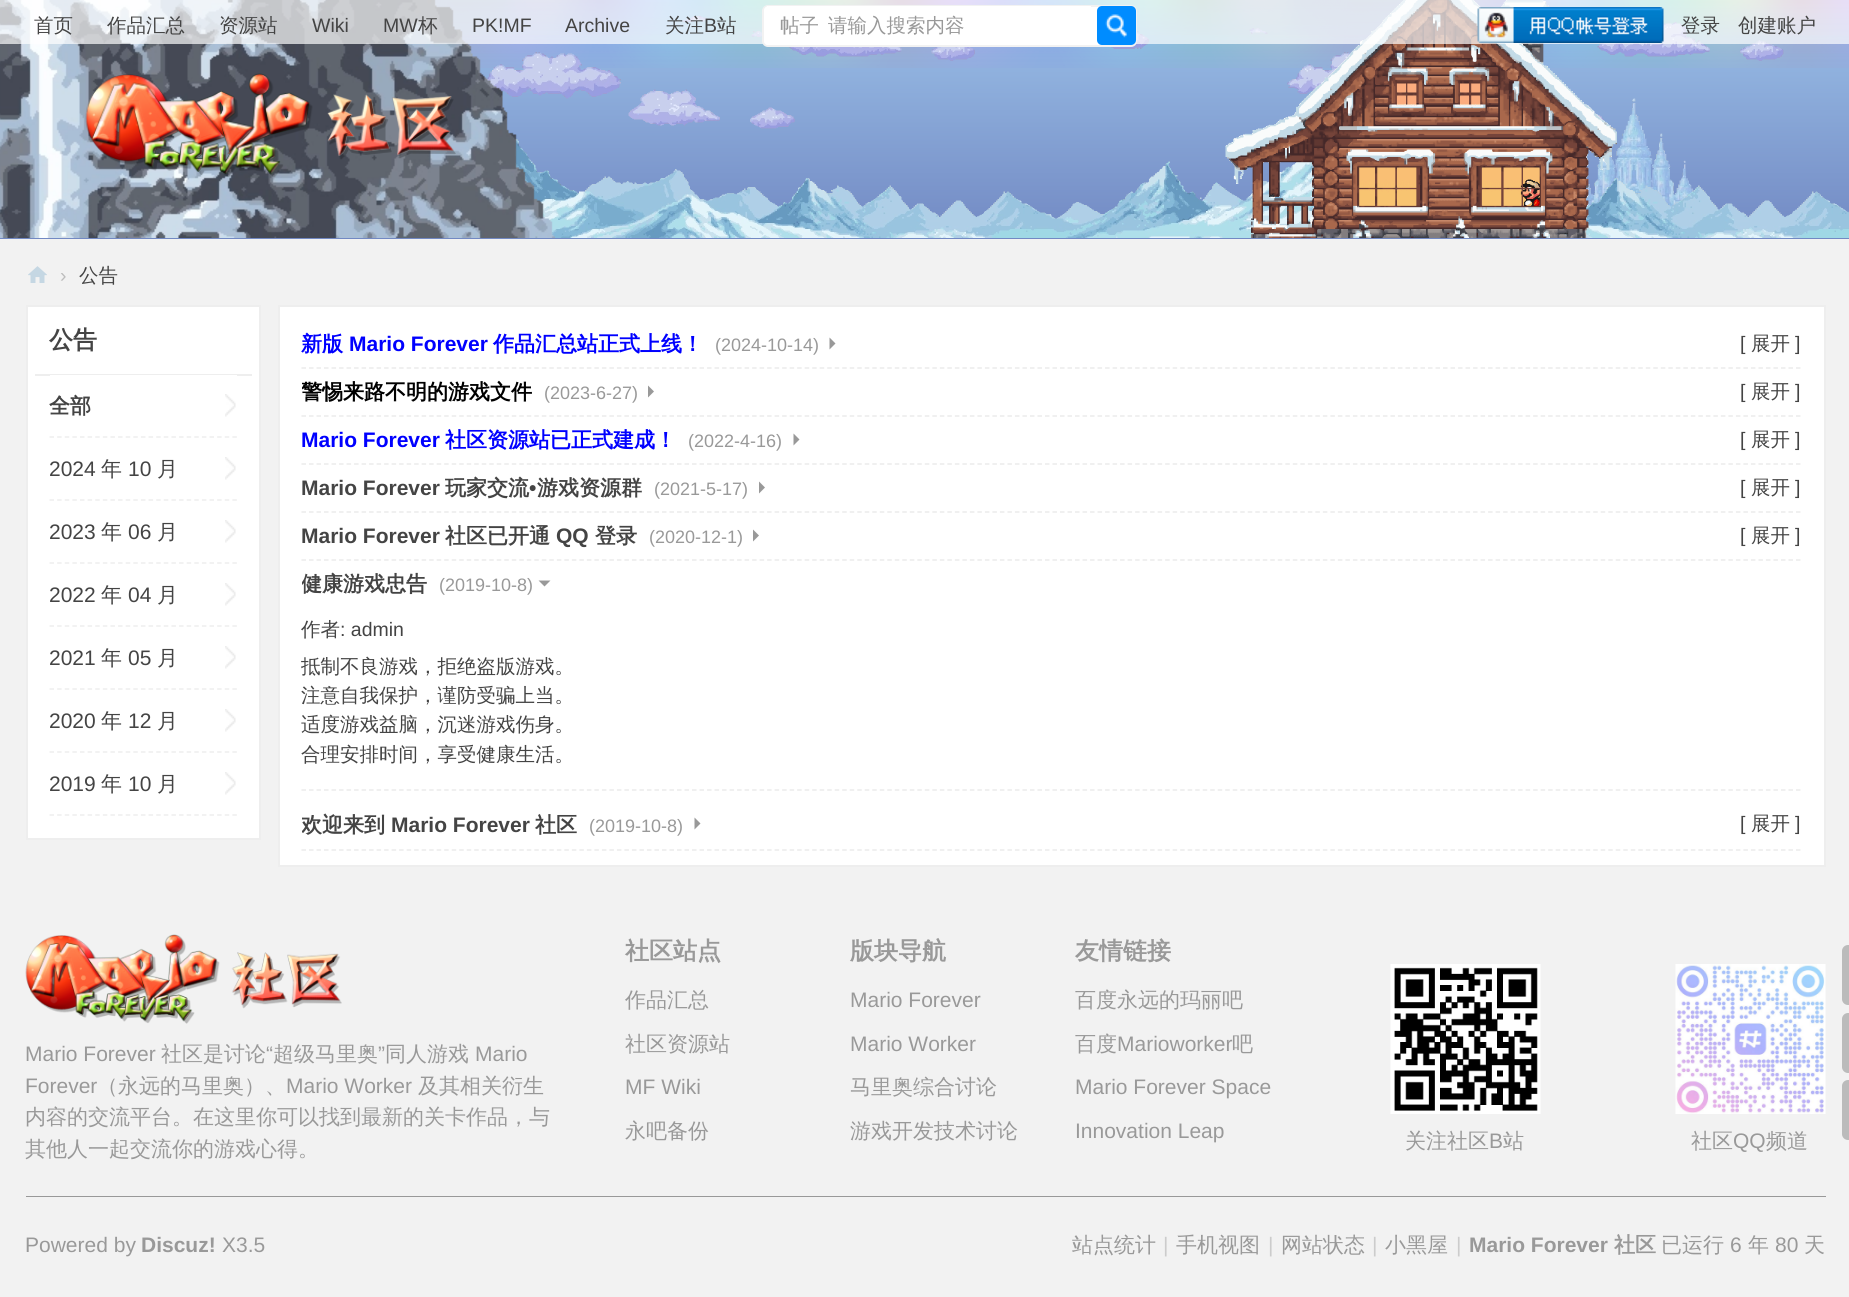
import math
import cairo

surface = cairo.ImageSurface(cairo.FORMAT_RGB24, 1849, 1297)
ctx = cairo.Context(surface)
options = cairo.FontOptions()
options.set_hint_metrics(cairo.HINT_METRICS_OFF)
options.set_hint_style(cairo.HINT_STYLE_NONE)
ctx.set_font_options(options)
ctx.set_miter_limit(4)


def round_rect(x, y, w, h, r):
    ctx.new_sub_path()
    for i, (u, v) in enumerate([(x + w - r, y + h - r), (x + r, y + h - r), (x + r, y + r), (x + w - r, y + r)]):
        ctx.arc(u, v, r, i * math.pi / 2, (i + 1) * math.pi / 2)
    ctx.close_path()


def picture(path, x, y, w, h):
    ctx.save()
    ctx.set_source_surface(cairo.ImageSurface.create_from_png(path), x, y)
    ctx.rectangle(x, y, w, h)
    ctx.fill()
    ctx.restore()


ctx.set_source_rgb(0.949, 0.949, 0.949)
ctx.paint()
gradient = cairo.LinearGradient(925, 239, 925, -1.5)
gradient.add_color_stop_rgba(0, 0.447, 0.537, 0.765, 1)
gradient.add_color_stop_rgba(1, 0.612, 0.761, 0.914, 1)
ctx.set_source(gradient)
ctx.rectangle(0, 0, 1849, 239)
ctx.fill()
picture("img4.png", 434, 0, 1415, 35)
picture("img5.png", 434, 0, 1415, 68)
picture("img6.png", 1586, 98, 114, 109)
picture("img7.png", 485, 16, 1364, 222)
picture("img1.png", 0, 0, 555, 238)
picture("img3.png", 1225, 0, 392, 238)
ctx.set_source_rgba(1, 1, 1, 0.69)
ctx.rectangle(0, 0, 1849, 44)
ctx.fill()
picture("img2.png", 85, 73, 371, 105)
ctx.select_font_face("WenQuanYi Zen Hei Medium")
ctx.set_font_size(19.5)
ctx.set_source_rgb(0.267, 0.267, 0.267)
ctx.move_to(34, 32)
ctx.show_text("首页")
ctx.move_to(107, 32)
ctx.show_text("作品汇总")
ctx.move_to(219, 32)
ctx.show_text("资源站")
ctx.select_font_face("Liberation Sans")
ctx.move_to(312, 32)
ctx.show_text("Wiki")
ctx.move_to(383, 32)
ctx.show_text("MW")
ctx.select_font_face("WenQuanYi Zen Hei Medium")
ctx.move_to(418, 32)
ctx.show_text("杯")
ctx.select_font_face("Liberation Sans")
ctx.move_to(472, 32)
ctx.show_text("PK!MF")
ctx.move_to(565, 32)
ctx.show_text("Archive")
ctx.select_font_face("WenQuanYi Zen Hei Medium")
ctx.move_to(665, 32)
ctx.show_text("关注")
ctx.select_font_face("Liberation Sans")
ctx.move_to(704, 32)
ctx.show_text("B")
ctx.select_font_face("WenQuanYi Zen Hei Medium")
ctx.move_to(717, 32)
ctx.show_text("站")
ctx.set_source_rgb(1, 1, 1)
round_rect(763, 6, 373, 40, 5)
ctx.fill_preserve()
ctx.set_source_rgb(0.949, 0.949, 0.949)
ctx.stroke()
ctx.set_source_rgb(1, 1, 1)
ctx.new_path()
ctx.move_to(769, 6)
ctx.line_to(819, 6)
ctx.line_to(819, 45)
ctx.line_to(769, 45)
ctx.curve_to(766, 45, 764, 43, 764, 40)
ctx.line_to(764, 11)
ctx.curve_to(764, 8, 766, 6, 769, 6)
ctx.close_path()
ctx.fill()
ctx.rectangle(767, 6, 1, 1)
ctx.fill()
ctx.set_source_rgb(0.6, 0.6, 0.6)
ctx.move_to(780, 32)
ctx.show_text("帖子")
ctx.set_source_rgb(1, 1, 1)
ctx.rectangle(819, 6, 272, 1)
ctx.fill()
ctx.set_source_rgb(0.6, 0.6, 0.6)
ctx.move_to(828, 32)
ctx.show_text("请输入搜索内容")
ctx.set_source_rgb(0, 0.549, 1)
round_rect(1097, 6, 39, 39, 5)
ctx.fill()
picture("img8.png", 1105, 14, 23, 24)
picture("img9.png", 1477, 7, 187, 36)
ctx.set_source_rgb(0.267, 0.267, 0.267)
ctx.move_to(1681, 32)
ctx.show_text("登录")
ctx.move_to(1738, 32)
ctx.show_text("创建账户")
picture("img10.png", 28, 266, 19, 17)
ctx.select_font_face("Liberation Sans")
ctx.set_source_rgb(0.741, 0.741, 0.741)
ctx.move_to(60, 282)
ctx.show_text("›")
ctx.select_font_face("WenQuanYi Zen Hei Medium")
ctx.set_source_rgb(0.267, 0.267, 0.267)
ctx.move_to(79, 282)
ctx.show_text("公告")
ctx.set_source_rgb(1, 1, 1)
ctx.rectangle(27, 306, 233, 533)
ctx.fill_preserve()
ctx.set_source_rgb(0.933, 0.933, 0.933)
ctx.stroke()
ctx.rectangle(35, 374, 217, 2)
ctx.fill()
ctx.select_font_face("WenQuanYi Zen Hei", cairo.FONT_SLANT_NORMAL, cairo.FONT_WEIGHT_BOLD)
ctx.set_font_size(24)
ctx.set_source_rgb(0.267, 0.267, 0.267)
ctx.move_to(49, 348)
ctx.show_text("公告")
ctx.set_source_rgb(1, 1, 1)
ctx.rectangle(50, 375, 187, 1)
ctx.fill()
ctx.new_path()
ctx.move_to(49.5, 437)
ctx.line_to(237, 437)
ctx.set_source_rgb(0.933, 0.933, 0.933)
ctx.set_line_width(1.5)
ctx.set_dash([4.5, 3.12])
ctx.stroke()
picture("img11.png", 225, 394, 11, 23)
ctx.set_font_size(21)
ctx.set_source_rgb(0.267, 0.267, 0.267)
ctx.move_to(49, 413)
ctx.show_text("全部")
ctx.new_path()
ctx.move_to(49.5, 500)
ctx.line_to(237, 500)
ctx.set_source_rgb(0.933, 0.933, 0.933)
ctx.stroke()
picture("img11.png", 225, 457, 11, 23)
ctx.select_font_face("Liberation Sans")
ctx.set_source_rgb(0.267, 0.267, 0.267)
ctx.move_to(49, 476)
ctx.show_text("2024")
ctx.select_font_face("WenQuanYi Zen Hei Medium")
ctx.move_to(101, 476)
ctx.show_text("年")
ctx.select_font_face("Liberation Sans")
ctx.move_to(128, 476)
ctx.show_text("10")
ctx.select_font_face("WenQuanYi Zen Hei Medium")
ctx.move_to(157, 476)
ctx.show_text("月")
ctx.new_path()
ctx.move_to(49.5, 563)
ctx.line_to(237, 563)
ctx.set_source_rgb(0.933, 0.933, 0.933)
ctx.stroke()
picture("img11.png", 225, 520, 11, 23)
ctx.select_font_face("Liberation Sans")
ctx.set_source_rgb(0.267, 0.267, 0.267)
ctx.move_to(49, 539)
ctx.show_text("2023")
ctx.select_font_face("WenQuanYi Zen Hei Medium")
ctx.move_to(101, 539)
ctx.show_text("年")
ctx.select_font_face("Liberation Sans")
ctx.move_to(128, 539)
ctx.show_text("06")
ctx.select_font_face("WenQuanYi Zen Hei Medium")
ctx.move_to(157, 539)
ctx.show_text("月")
ctx.new_path()
ctx.move_to(49.5, 626)
ctx.line_to(237, 626)
ctx.set_source_rgb(0.933, 0.933, 0.933)
ctx.stroke()
picture("img11.png", 225, 583, 11, 23)
ctx.select_font_face("Liberation Sans")
ctx.set_source_rgb(0.267, 0.267, 0.267)
ctx.move_to(49, 602)
ctx.show_text("2022")
ctx.select_font_face("WenQuanYi Zen Hei Medium")
ctx.move_to(101, 602)
ctx.show_text("年")
ctx.select_font_face("Liberation Sans")
ctx.move_to(128, 602)
ctx.show_text("04")
ctx.select_font_face("WenQuanYi Zen Hei Medium")
ctx.move_to(157, 602)
ctx.show_text("月")
ctx.new_path()
ctx.move_to(49.5, 689)
ctx.line_to(237, 689)
ctx.set_source_rgb(0.933, 0.933, 0.933)
ctx.stroke()
picture("img11.png", 225, 646, 11, 23)
ctx.select_font_face("Liberation Sans")
ctx.set_source_rgb(0.267, 0.267, 0.267)
ctx.move_to(49, 665)
ctx.show_text("2021")
ctx.select_font_face("WenQuanYi Zen Hei Medium")
ctx.move_to(101, 665)
ctx.show_text("年")
ctx.select_font_face("Liberation Sans")
ctx.move_to(128, 665)
ctx.show_text("05")
ctx.select_font_face("WenQuanYi Zen Hei Medium")
ctx.move_to(157, 665)
ctx.show_text("月")
ctx.new_path()
ctx.move_to(49.5, 752)
ctx.line_to(237, 752)
ctx.set_source_rgb(0.933, 0.933, 0.933)
ctx.stroke()
picture("img11.png", 225, 709, 11, 23)
ctx.select_font_face("Liberation Sans")
ctx.set_source_rgb(0.267, 0.267, 0.267)
ctx.move_to(49, 728)
ctx.show_text("2020")
ctx.select_font_face("WenQuanYi Zen Hei Medium")
ctx.move_to(101, 728)
ctx.show_text("年")
ctx.select_font_face("Liberation Sans")
ctx.move_to(128, 728)
ctx.show_text("12")
ctx.select_font_face("WenQuanYi Zen Hei Medium")
ctx.move_to(157, 728)
ctx.show_text("月")
ctx.new_path()
ctx.move_to(49.5, 815)
ctx.line_to(237, 815)
ctx.set_source_rgb(0.933, 0.933, 0.933)
ctx.stroke()
picture("img11.png", 225, 772, 11, 23)
ctx.select_font_face("Liberation Sans")
ctx.set_source_rgb(0.267, 0.267, 0.267)
ctx.move_to(49, 791)
ctx.show_text("2019")
ctx.select_font_face("WenQuanYi Zen Hei Medium")
ctx.move_to(101, 791)
ctx.show_text("年")
ctx.select_font_face("Liberation Sans")
ctx.move_to(128, 791)
ctx.show_text("10")
ctx.select_font_face("WenQuanYi Zen Hei Medium")
ctx.move_to(157, 791)
ctx.show_text("月")
ctx.set_source_rgb(1, 1, 1)
ctx.rectangle(279, 306, 1546, 560)
ctx.fill_preserve()
ctx.set_source_rgb(0.933, 0.933, 0.933)
ctx.set_line_width(2)
ctx.set_dash([])
ctx.stroke()
ctx.new_path()
ctx.move_to(301.5, 368)
ctx.line_to(1801.5, 368)
ctx.set_source_rgb(0.918, 0.918, 0.918)
ctx.set_line_width(1.5)
ctx.set_dash([4.5, 3.01])
ctx.stroke()
ctx.select_font_face("WenQuanYi Zen Hei", cairo.FONT_SLANT_NORMAL, cairo.FONT_WEIGHT_BOLD)
ctx.set_source_rgb(0, 0, 1)
ctx.move_to(301, 351)
ctx.show_text("新版")
ctx.select_font_face("Liberation Sans", cairo.FONT_SLANT_NORMAL, cairo.FONT_WEIGHT_BOLD)
ctx.move_to(349, 351)
ctx.show_text("Mario Forever")
ctx.select_font_face("WenQuanYi Zen Hei", cairo.FONT_SLANT_NORMAL, cairo.FONT_WEIGHT_BOLD)
ctx.move_to(493, 351)
ctx.show_text("作品汇总站正式上线！")
ctx.select_font_face("Liberation Sans")
ctx.set_font_size(18)
ctx.set_source_rgb(0.6, 0.6, 0.6)
ctx.move_to(715, 351)
ctx.show_text("(2024-10-14)")
ctx.new_path()
ctx.move_to(829.5, 349.5)
ctx.line_to(829.5, 337.5)
ctx.line_to(835.5, 343.5)
ctx.close_path()
ctx.fill()
ctx.set_font_size(19.5)
ctx.set_source_rgb(0.267, 0.267, 0.267)
ctx.move_to(1740, 350)
ctx.show_text("[")
ctx.select_font_face("WenQuanYi Zen Hei Medium")
ctx.move_to(1751, 350)
ctx.show_text("展开")
ctx.select_font_face("Liberation Sans")
ctx.move_to(1795, 350)
ctx.show_text("]")
ctx.new_path()
ctx.move_to(301.5, 416)
ctx.line_to(1801.5, 416)
ctx.set_source_rgb(0.918, 0.918, 0.918)
ctx.stroke()
ctx.save()
ctx.rectangle(302, 377, 1500, 39)
ctx.clip()
ctx.select_font_face("WenQuanYi Zen Hei", cairo.FONT_SLANT_NORMAL, cairo.FONT_WEIGHT_BOLD)
ctx.set_font_size(21)
ctx.set_source_rgb(0, 0, 0)
ctx.move_to(301, 399)
ctx.show_text("警惕来路不明的游戏文件")
ctx.restore()
ctx.set_font_size(18)
ctx.set_source_rgb(0.6, 0.6, 0.6)
ctx.move_to(544, 399)
ctx.show_text("(2023-6-27)")
ctx.new_path()
ctx.move_to(648, 397.5)
ctx.line_to(648, 385.5)
ctx.line_to(654, 391.5)
ctx.close_path()
ctx.fill()
ctx.set_font_size(19.5)
ctx.set_source_rgb(0.267, 0.267, 0.267)
ctx.move_to(1740, 398)
ctx.show_text("[")
ctx.select_font_face("WenQuanYi Zen Hei Medium")
ctx.move_to(1751, 398)
ctx.show_text("展开")
ctx.select_font_face("Liberation Sans")
ctx.move_to(1795, 398)
ctx.show_text("]")
ctx.new_path()
ctx.move_to(301.5, 464)
ctx.line_to(1801.5, 464)
ctx.set_source_rgb(0.918, 0.918, 0.918)
ctx.stroke()
ctx.select_font_face("Liberation Sans", cairo.FONT_SLANT_NORMAL, cairo.FONT_WEIGHT_BOLD)
ctx.set_font_size(21)
ctx.set_source_rgb(0, 0, 1)
ctx.move_to(301, 447)
ctx.show_text("Mario Forever")
ctx.select_font_face("WenQuanYi Zen Hei", cairo.FONT_SLANT_NORMAL, cairo.FONT_WEIGHT_BOLD)
ctx.move_to(445, 447)
ctx.show_text("社区资源站已正式建成！")
ctx.select_font_face("Liberation Sans")
ctx.set_font_size(18)
ctx.set_source_rgb(0.6, 0.6, 0.6)
ctx.move_to(688, 447)
ctx.show_text("(2022-4-16)")
ctx.new_path()
ctx.move_to(793.5, 445.5)
ctx.line_to(793.5, 433.5)
ctx.line_to(799.5, 439.5)
ctx.close_path()
ctx.fill()
ctx.set_font_size(19.5)
ctx.set_source_rgb(0.267, 0.267, 0.267)
ctx.move_to(1740, 446)
ctx.show_text("[")
ctx.select_font_face("WenQuanYi Zen Hei Medium")
ctx.move_to(1751, 446)
ctx.show_text("展开")
ctx.select_font_face("Liberation Sans")
ctx.move_to(1795, 446)
ctx.show_text("]")
ctx.new_path()
ctx.move_to(301.5, 512)
ctx.line_to(1801.5, 512)
ctx.set_source_rgb(0.918, 0.918, 0.918)
ctx.stroke()
ctx.select_font_face("Liberation Sans", cairo.FONT_SLANT_NORMAL, cairo.FONT_WEIGHT_BOLD)
ctx.set_font_size(21)
ctx.set_source_rgb(0.267, 0.267, 0.267)
ctx.move_to(301, 495)
ctx.show_text("Mario Forever")
ctx.select_font_face("WenQuanYi Zen Hei", cairo.FONT_SLANT_NORMAL, cairo.FONT_WEIGHT_BOLD)
ctx.move_to(445, 495)
ctx.show_text("玩家交流")
ctx.select_font_face("Liberation Sans", cairo.FONT_SLANT_NORMAL, cairo.FONT_WEIGHT_BOLD)
ctx.move_to(529, 495)
ctx.show_text("•")
ctx.select_font_face("WenQuanYi Zen Hei", cairo.FONT_SLANT_NORMAL, cairo.FONT_WEIGHT_BOLD)
ctx.move_to(537, 495)
ctx.show_text("游戏资源群")
ctx.select_font_face("Liberation Sans")
ctx.set_font_size(18)
ctx.set_source_rgb(0.6, 0.6, 0.6)
ctx.move_to(654, 495)
ctx.show_text("(2021-5-17)")
ctx.new_path()
ctx.move_to(759, 493.5)
ctx.line_to(759, 481.5)
ctx.line_to(765, 487.5)
ctx.close_path()
ctx.fill()
ctx.set_font_size(19.5)
ctx.set_source_rgb(0.267, 0.267, 0.267)
ctx.move_to(1740, 494)
ctx.show_text("[")
ctx.select_font_face("WenQuanYi Zen Hei Medium")
ctx.move_to(1751, 494)
ctx.show_text("展开")
ctx.select_font_face("Liberation Sans")
ctx.move_to(1795, 494)
ctx.show_text("]")
ctx.new_path()
ctx.move_to(301.5, 560)
ctx.line_to(1801.5, 560)
ctx.set_source_rgb(0.918, 0.918, 0.918)
ctx.stroke()
ctx.select_font_face("Liberation Sans", cairo.FONT_SLANT_NORMAL, cairo.FONT_WEIGHT_BOLD)
ctx.set_font_size(21)
ctx.set_source_rgb(0.267, 0.267, 0.267)
ctx.move_to(301, 543)
ctx.show_text("Mario Forever")
ctx.select_font_face("WenQuanYi Zen Hei", cairo.FONT_SLANT_NORMAL, cairo.FONT_WEIGHT_BOLD)
ctx.move_to(445, 543)
ctx.show_text("社区已开通")
ctx.select_font_face("Liberation Sans", cairo.FONT_SLANT_NORMAL, cairo.FONT_WEIGHT_BOLD)
ctx.move_to(556, 543)
ctx.show_text("QQ")
ctx.select_font_face("WenQuanYi Zen Hei", cairo.FONT_SLANT_NORMAL, cairo.FONT_WEIGHT_BOLD)
ctx.move_to(595, 543)
ctx.show_text("登录")
ctx.select_font_face("Liberation Sans")
ctx.set_font_size(18)
ctx.set_source_rgb(0.6, 0.6, 0.6)
ctx.move_to(649, 543)
ctx.show_text("(2020-12-1)")
ctx.new_path()
ctx.move_to(753, 541.5)
ctx.line_to(753, 529.5)
ctx.line_to(759, 535.5)
ctx.close_path()
ctx.fill()
ctx.set_font_size(19.5)
ctx.set_source_rgb(0.267, 0.267, 0.267)
ctx.move_to(1740, 542)
ctx.show_text("[")
ctx.select_font_face("WenQuanYi Zen Hei Medium")
ctx.move_to(1751, 542)
ctx.show_text("展开")
ctx.select_font_face("Liberation Sans")
ctx.move_to(1795, 542)
ctx.show_text("]")
ctx.save()
ctx.rectangle(302, 569, 1500, 39)
ctx.clip()
ctx.select_font_face("WenQuanYi Zen Hei", cairo.FONT_SLANT_NORMAL, cairo.FONT_WEIGHT_BOLD)
ctx.set_font_size(21)
ctx.move_to(301, 591)
ctx.show_text("健康游戏忠告")
ctx.restore()
ctx.set_font_size(18)
ctx.set_source_rgb(0.6, 0.6, 0.6)
ctx.move_to(439, 591)
ctx.show_text("(2019-10-8)")
ctx.new_path()
ctx.move_to(538.5, 580.5)
ctx.line_to(550.5, 580.5)
ctx.line_to(544.5, 586.5)
ctx.close_path()
ctx.fill()
ctx.new_path()
ctx.move_to(301.5, 790)
ctx.line_to(1801.5, 790)
ctx.set_source_rgb(0.918, 0.918, 0.918)
ctx.stroke()
ctx.select_font_face("WenQuanYi Zen Hei Medium")
ctx.set_font_size(19.5)
ctx.set_source_rgb(0.267, 0.267, 0.267)
ctx.move_to(301, 636)
ctx.show_text("作者")
ctx.select_font_face("Liberation Sans")
ctx.move_to(340, 636)
ctx.show_text(": admin")
ctx.select_font_face("WenQuanYi Zen Hei Medium")
ctx.move_to(301, 673)
ctx.show_text("抵制不良游戏，拒绝盗版游戏。")
ctx.move_to(301, 702)
ctx.show_text("注意自我保护，谨防受骗上当。")
ctx.move_to(301, 731)
ctx.show_text("适度游戏益脑，沉迷游戏伤身。")
ctx.move_to(301, 761)
ctx.show_text("合理安排时间，享受健康生活。")
ctx.new_path()
ctx.move_to(301.5, 850)
ctx.line_to(1801.5, 850)
ctx.set_source_rgb(0.918, 0.918, 0.918)
ctx.stroke()
ctx.save()
ctx.rectangle(302, 810, 1500, 39)
ctx.clip()
ctx.select_font_face("WenQuanYi Zen Hei", cairo.FONT_SLANT_NORMAL, cairo.FONT_WEIGHT_BOLD)
ctx.set_font_size(21)
ctx.set_source_rgb(0.267, 0.267, 0.267)
ctx.move_to(301, 832)
ctx.show_text("欢迎来到")
ctx.restore()
ctx.select_font_face("Liberation Sans", cairo.FONT_SLANT_NORMAL, cairo.FONT_WEIGHT_BOLD)
ctx.set_font_size(21)
ctx.set_source_rgb(0.267, 0.267, 0.267)
ctx.move_to(391, 832)
ctx.show_text("Mario Forever")
ctx.select_font_face("WenQuanYi Zen Hei", cairo.FONT_SLANT_NORMAL, cairo.FONT_WEIGHT_BOLD)
ctx.move_to(535, 832)
ctx.show_text("社区")
ctx.select_font_face("Liberation Sans")
ctx.set_font_size(18)
ctx.set_source_rgb(0.6, 0.6, 0.6)
ctx.move_to(589, 832)
ctx.show_text("(2019-10-8)")
ctx.new_path()
ctx.move_to(694.5, 829.5)
ctx.line_to(694.5, 817.5)
ctx.line_to(700.5, 823.5)
ctx.close_path()
ctx.fill()
ctx.set_font_size(19.5)
ctx.set_source_rgb(0.267, 0.267, 0.267)
ctx.move_to(1740, 830)
ctx.show_text("[")
ctx.select_font_face("WenQuanYi Zen Hei Medium")
ctx.move_to(1751, 830)
ctx.show_text("展开")
ctx.select_font_face("Liberation Sans")
ctx.move_to(1795, 830)
ctx.show_text("]")
ctx.set_source_rgb(0.6, 0.6, 0.6)
ctx.rectangle(26, 1196, 1800, 1)
ctx.fill()
picture("img12.png", 25, 934, 317, 90)
ctx.set_font_size(21)
ctx.move_to(25, 1061)
ctx.show_text("Mario Forever")
ctx.select_font_face("WenQuanYi Zen Hei Medium")
ctx.move_to(161, 1061)
ctx.show_text("社区是讨论")
ctx.select_font_face("Liberation Sans")
ctx.move_to(266, 1061)
ctx.show_text("“")
ctx.select_font_face("WenQuanYi Zen Hei Medium")
ctx.move_to(273, 1061)
ctx.show_text("超级马里奥")
ctx.select_font_face("Liberation Sans")
ctx.move_to(378, 1061)
ctx.show_text("”")
ctx.select_font_face("WenQuanYi Zen Hei Medium")
ctx.move_to(385, 1061)
ctx.show_text("同人游戏")
ctx.select_font_face("Liberation Sans")
ctx.move_to(475, 1061)
ctx.show_text("Mario")
ctx.move_to(25, 1093)
ctx.show_text("Forever")
ctx.select_font_face("WenQuanYi Zen Hei Medium")
ctx.move_to(97, 1093)
ctx.show_text("（永远的马里奥）、")
ctx.select_font_face("Liberation Sans")
ctx.move_to(286, 1093)
ctx.show_text("Mario Worker")
ctx.select_font_face("WenQuanYi Zen Hei Medium")
ctx.move_to(418, 1093)
ctx.show_text("及其相关衍生")
ctx.move_to(25, 1124)
ctx.show_text("内容的交流平台。在这里你可以找到最新的关卡作品，与")
ctx.move_to(25, 1156)
ctx.show_text("其他人一起交流你的游戏心得。")
ctx.select_font_face("WenQuanYi Zen Hei", cairo.FONT_SLANT_NORMAL, cairo.FONT_WEIGHT_BOLD)
ctx.set_font_size(24)
ctx.move_to(625, 959)
ctx.show_text("社区站点")
ctx.select_font_face("WenQuanYi Zen Hei Medium")
ctx.set_font_size(21)
ctx.move_to(625, 1007)
ctx.show_text("作品汇总")
ctx.move_to(625, 1051)
ctx.show_text("社区资源站")
ctx.select_font_face("Liberation Sans")
ctx.move_to(625, 1094)
ctx.show_text("MF Wiki")
ctx.select_font_face("WenQuanYi Zen Hei Medium")
ctx.move_to(625, 1138)
ctx.show_text("永吧备份")
ctx.select_font_face("WenQuanYi Zen Hei", cairo.FONT_SLANT_NORMAL, cairo.FONT_WEIGHT_BOLD)
ctx.set_font_size(24)
ctx.move_to(850, 959)
ctx.show_text("版块导航")
ctx.select_font_face("Liberation Sans")
ctx.set_font_size(21)
ctx.move_to(850, 1007)
ctx.show_text("Mario Forever")
ctx.move_to(850, 1051)
ctx.show_text("Mario Worker")
ctx.select_font_face("WenQuanYi Zen Hei Medium")
ctx.move_to(850, 1094)
ctx.show_text("马里奥综合讨论")
ctx.move_to(850, 1138)
ctx.show_text("游戏开发技术讨论")
ctx.select_font_face("WenQuanYi Zen Hei", cairo.FONT_SLANT_NORMAL, cairo.FONT_WEIGHT_BOLD)
ctx.set_font_size(24)
ctx.move_to(1075, 959)
ctx.show_text("友情链接")
ctx.select_font_face("WenQuanYi Zen Hei Medium")
ctx.set_font_size(21)
ctx.move_to(1075, 1007)
ctx.show_text("百度永远的玛丽吧")
ctx.move_to(1075, 1051)
ctx.show_text("百度")
ctx.select_font_face("Liberation Sans")
ctx.move_to(1117, 1051)
ctx.show_text("Marioworker")
ctx.select_font_face("WenQuanYi Zen Hei Medium")
ctx.move_to(1232, 1051)
ctx.show_text("吧")
ctx.select_font_face("Liberation Sans")
ctx.move_to(1075, 1094)
ctx.show_text("Mario Forever Space")
ctx.move_to(1075, 1138)
ctx.show_text("Innovation Leap")
picture("img13.png", 1390, 964, 151, 150)
ctx.select_font_face("WenQuanYi Zen Hei Medium")
ctx.move_to(1405, 1148)
ctx.show_text("关注社区")
ctx.select_font_face("Liberation Sans")
ctx.move_to(1489, 1148)
ctx.show_text("B")
ctx.select_font_face("WenQuanYi Zen Hei Medium")
ctx.move_to(1503, 1148)
ctx.show_text("站")
picture("img14.png", 1675, 964, 151, 150)
ctx.move_to(1691, 1148)
ctx.show_text("社区")
ctx.select_font_face("Liberation Sans")
ctx.move_to(1733, 1148)
ctx.show_text("QQ")
ctx.select_font_face("WenQuanYi Zen Hei Medium")
ctx.move_to(1766, 1148)
ctx.show_text("频道")
ctx.select_font_face("Liberation Sans")
ctx.move_to(25, 1252)
ctx.show_text("Powered by")
ctx.select_font_face("Liberation Sans", cairo.FONT_SLANT_NORMAL, cairo.FONT_WEIGHT_BOLD)
ctx.move_to(141, 1252)
ctx.show_text("Discuz!")
ctx.select_font_face("Liberation Sans")
ctx.move_to(222, 1252)
ctx.show_text("X3.5")
ctx.select_font_face("WenQuanYi Zen Hei Medium")
ctx.move_to(1072, 1252)
ctx.show_text("站点统计")
ctx.select_font_face("Liberation Sans")
ctx.set_source_rgb(0.8, 0.8, 0.8)
ctx.move_to(1163, 1252)
ctx.show_text("|")
ctx.select_font_face("WenQuanYi Zen Hei Medium")
ctx.set_source_rgb(0.6, 0.6, 0.6)
ctx.move_to(1176, 1252)
ctx.show_text("手机视图")
ctx.select_font_face("Liberation Sans")
ctx.set_source_rgb(0.8, 0.8, 0.8)
ctx.move_to(1268, 1252)
ctx.show_text("|")
ctx.select_font_face("WenQuanYi Zen Hei Medium")
ctx.set_source_rgb(0.6, 0.6, 0.6)
ctx.move_to(1281, 1252)
ctx.show_text("网站状态")
ctx.select_font_face("Liberation Sans")
ctx.set_source_rgb(0.8, 0.8, 0.8)
ctx.move_to(1372, 1252)
ctx.show_text("|")
ctx.select_font_face("WenQuanYi Zen Hei Medium")
ctx.set_source_rgb(0.6, 0.6, 0.6)
ctx.move_to(1385, 1252)
ctx.show_text("小黑屋")
ctx.select_font_face("Liberation Sans")
ctx.set_source_rgb(0.8, 0.8, 0.8)
ctx.move_to(1456, 1252)
ctx.show_text("|")
ctx.select_font_face("Liberation Sans", cairo.FONT_SLANT_NORMAL, cairo.FONT_WEIGHT_BOLD)
ctx.set_source_rgb(0.6, 0.6, 0.6)
ctx.move_to(1469, 1252)
ctx.show_text("Mario Forever")
ctx.select_font_face("WenQuanYi Zen Hei", cairo.FONT_SLANT_NORMAL, cairo.FONT_WEIGHT_BOLD)
ctx.move_to(1614, 1252)
ctx.show_text("社区")
ctx.select_font_face("WenQuanYi Zen Hei Medium")
ctx.move_to(1661, 1252)
ctx.show_text("已运行")
ctx.select_font_face("Liberation Sans")
ctx.move_to(1730, 1252)
ctx.show_text("6")
ctx.select_font_face("WenQuanYi Zen Hei Medium")
ctx.move_to(1748, 1252)
ctx.show_text("年")
ctx.select_font_face("Liberation Sans")
ctx.move_to(1775, 1252)
ctx.show_text("80")
ctx.select_font_face("WenQuanYi Zen Hei Medium")
ctx.move_to(1804, 1252)
ctx.show_text("天")
ctx.set_source_rgb(0.733, 0.733, 0.733)
round_rect(1842, 945, 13, 60, 6)
ctx.fill()
round_rect(1842, 1013, 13, 60, 6)
ctx.fill()
round_rect(1842, 1080, 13, 60, 6)
ctx.fill()
surface.write_to_png("page.png")
